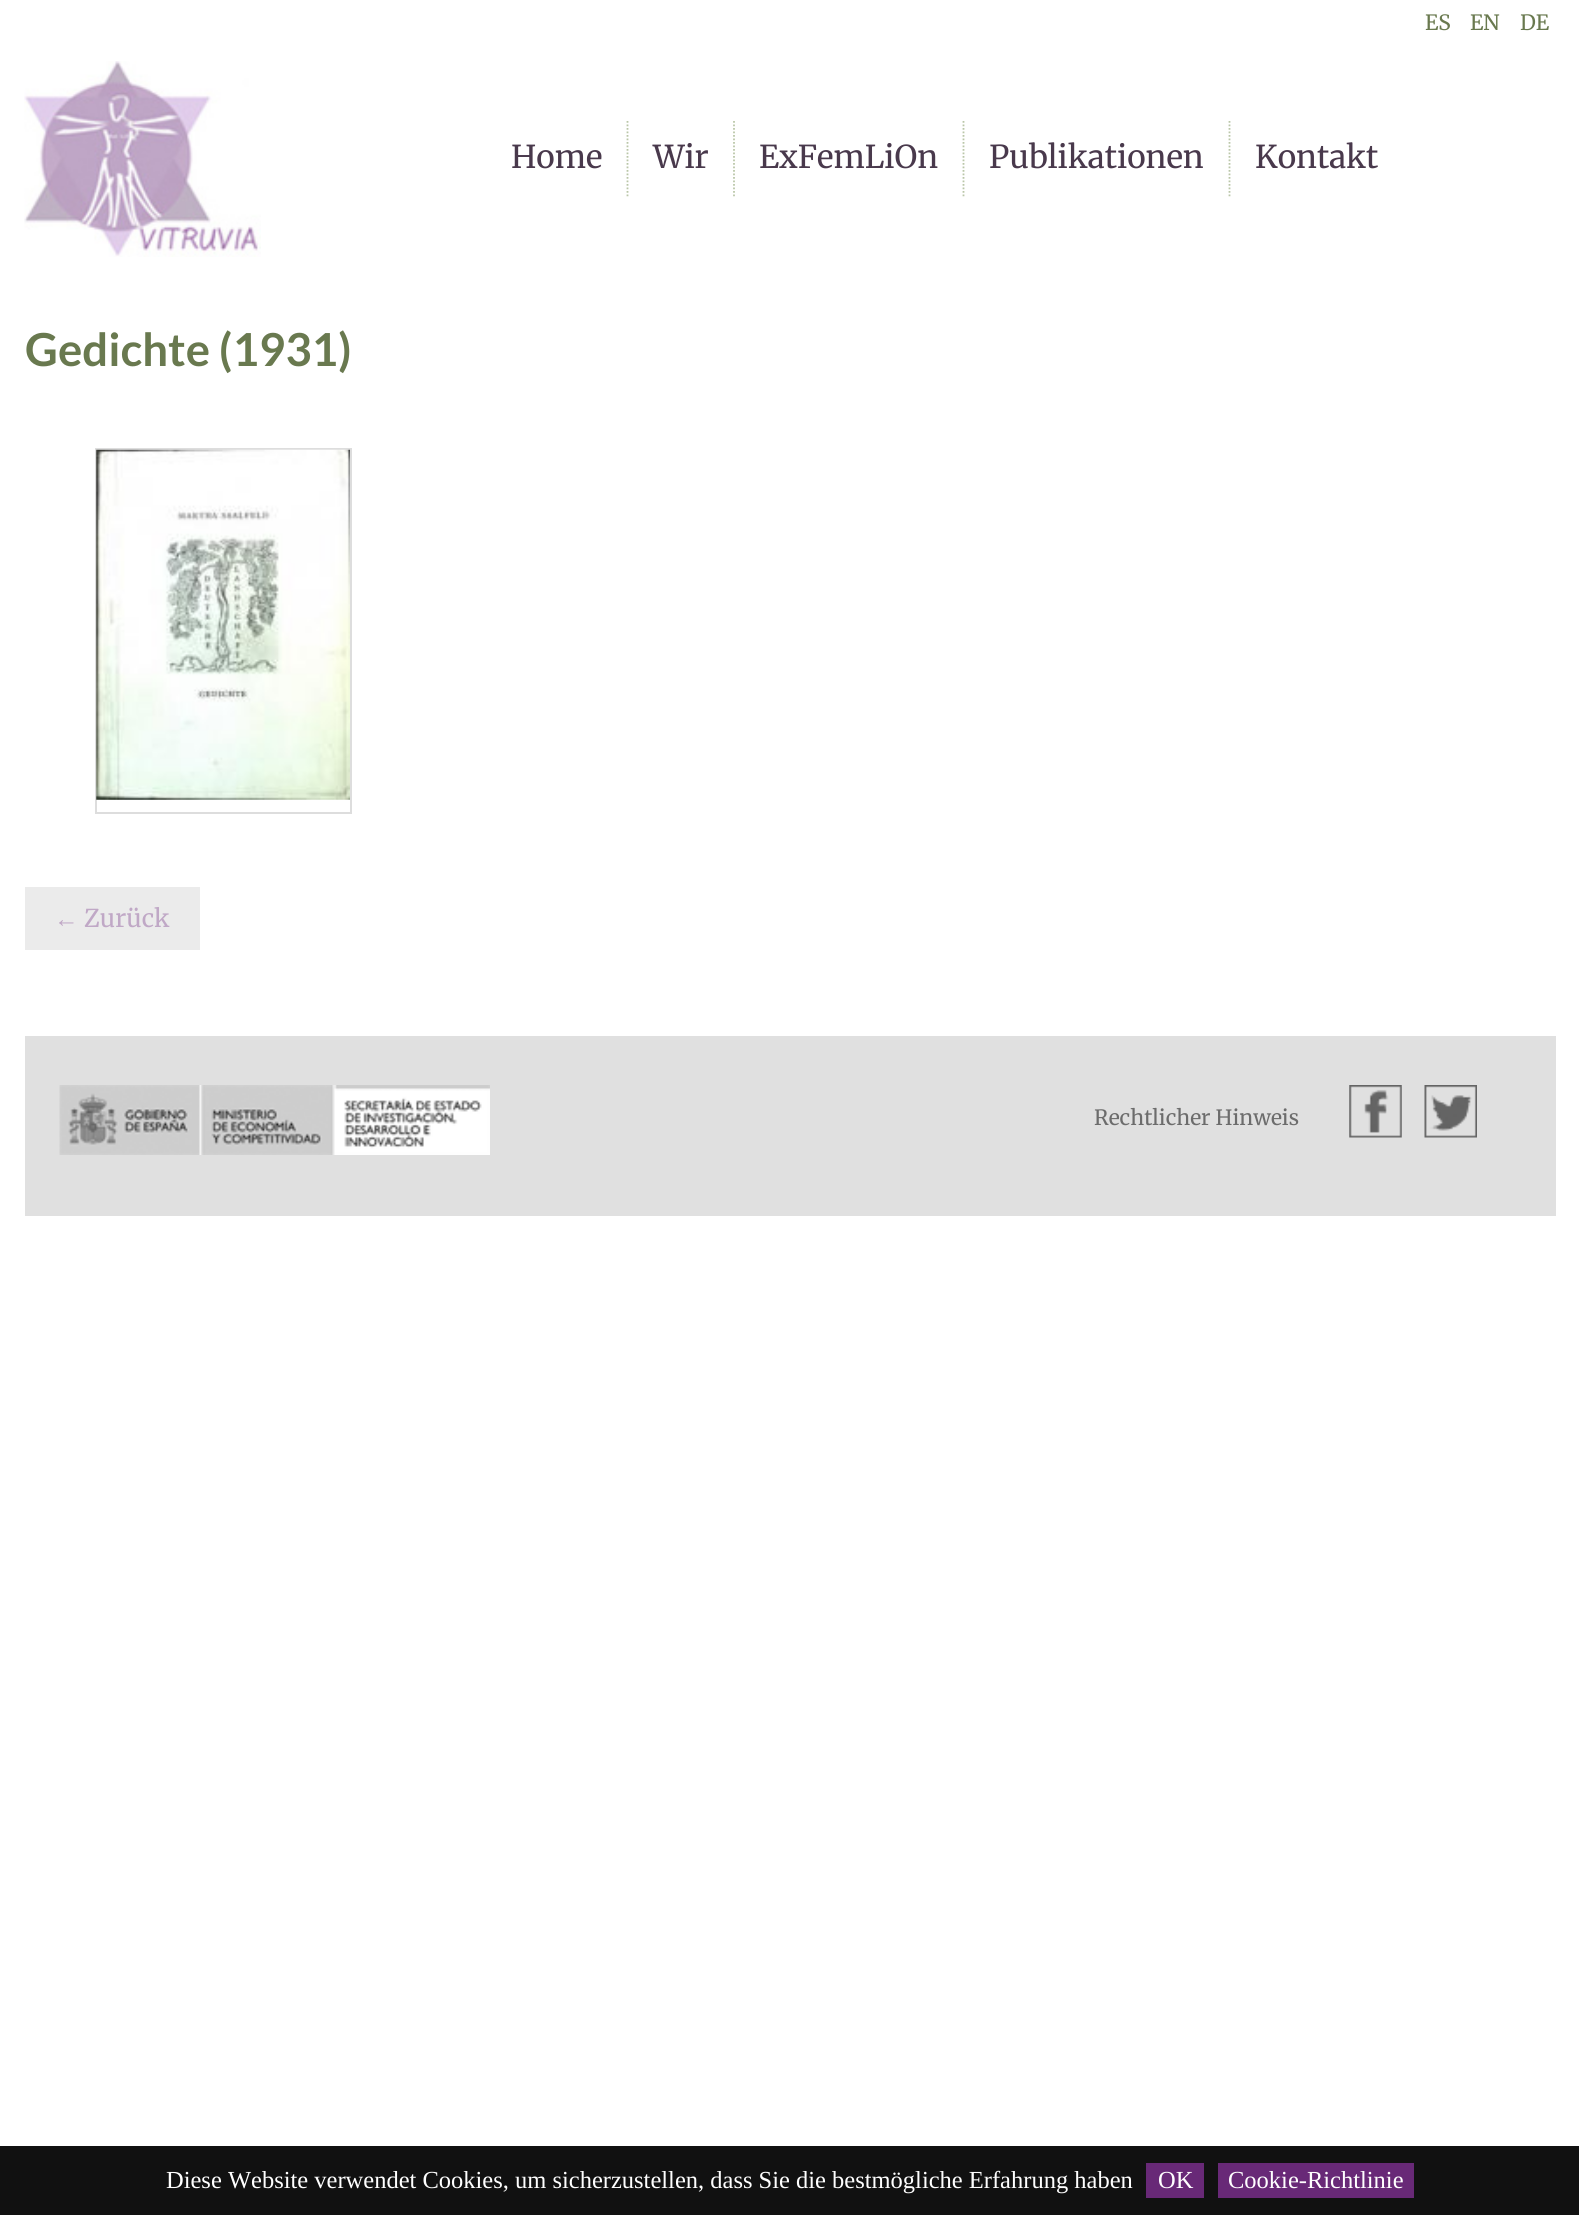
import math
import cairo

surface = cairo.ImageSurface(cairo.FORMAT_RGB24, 1579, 2215)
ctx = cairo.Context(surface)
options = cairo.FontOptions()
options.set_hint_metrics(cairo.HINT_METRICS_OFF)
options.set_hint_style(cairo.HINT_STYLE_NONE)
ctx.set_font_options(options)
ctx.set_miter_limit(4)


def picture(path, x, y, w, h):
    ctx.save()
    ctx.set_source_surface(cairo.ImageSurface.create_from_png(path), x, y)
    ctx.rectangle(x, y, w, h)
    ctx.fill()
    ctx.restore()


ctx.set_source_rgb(1, 1, 1)
ctx.paint()
ctx.select_font_face("Merriweather Light")
ctx.set_font_size(21)
ctx.set_source_rgb(0.412, 0.475, 0.31)
ctx.move_to(1425, 30)
ctx.show_text("ES")
ctx.move_to(1470, 30)
ctx.show_text("EN")
ctx.move_to(1520, 30)
ctx.show_text("DE")
picture("img1.png", 24, 61, 237, 196)
ctx.set_font_size(31.5)
ctx.set_source_rgb(0.286, 0.224, 0.298)
ctx.move_to(511, 168)
ctx.show_text("Home")
ctx.new_path()
ctx.move_to(627.5, 121)
ctx.line_to(627.5, 198)
ctx.set_source_rgb(0.729, 0.776, 0.659)
ctx.set_line_width(1.8)
ctx.set_dash([1.75, 1.75])
ctx.stroke()
ctx.set_source_rgb(0.286, 0.224, 0.298)
ctx.move_to(653, 168)
ctx.show_text("Wir")
ctx.new_path()
ctx.move_to(734, 121)
ctx.line_to(734, 198)
ctx.set_source_rgb(0.729, 0.776, 0.659)
ctx.stroke()
ctx.set_source_rgb(0.286, 0.224, 0.298)
ctx.move_to(759, 168)
ctx.show_text("ExFemLiOn")
ctx.new_path()
ctx.move_to(963.5, 121)
ctx.line_to(963.5, 198)
ctx.set_source_rgb(0.729, 0.776, 0.659)
ctx.stroke()
ctx.set_source_rgb(0.286, 0.224, 0.298)
ctx.move_to(989, 168)
ctx.show_text("Publikationen")
ctx.new_path()
ctx.move_to(1229.5, 121)
ctx.line_to(1229.5, 198)
ctx.set_source_rgb(0.729, 0.776, 0.659)
ctx.stroke()
ctx.set_source_rgb(0.286, 0.224, 0.298)
ctx.move_to(1255, 168)
ctx.show_text("Kontakt")
ctx.select_font_face("Lato", cairo.FONT_SLANT_NORMAL, cairo.FONT_WEIGHT_BOLD)
ctx.set_font_size(45.5)
ctx.set_source_rgb(0.412, 0.475, 0.31)
ctx.move_to(25, 366)
ctx.show_text("Gedichte (1931)")
ctx.rectangle(96, 449, 255, 364)
ctx.set_source_rgb(0.867, 0.867, 0.867)
ctx.set_line_width(2)
ctx.set_dash([])
ctx.stroke()
picture("img2.png", 96, 449, 254, 351)
ctx.set_source_rgb(0.918, 0.918, 0.918)
ctx.rectangle(25, 887, 175, 63)
ctx.fill()
ctx.select_font_face("Liberation Serif")
ctx.set_font_size(24.5)
ctx.set_source_rgb(0.753, 0.659, 0.776)
ctx.move_to(54, 927)
ctx.show_text("←")
ctx.select_font_face("Merriweather Light")
ctx.move_to(84, 927)
ctx.show_text("Zurück")
ctx.set_source_rgb(0.878, 0.878, 0.878)
ctx.rectangle(25, 1036, 1531, 180)
ctx.fill()
picture("img3.png", 59, 1085, 431, 70)
ctx.set_font_size(21)
ctx.set_source_rgb(0.424, 0.424, 0.424)
ctx.move_to(1094, 1125)
ctx.show_text("Rechtlicher Hinweis")
picture("img4.png", 1349, 1085, 53, 53)
picture("img5.png", 1424, 1085, 53, 53)
ctx.set_source_rgb(0.067, 0.067, 0.067)
ctx.rectangle(0, 2146, 1579, 69)
ctx.fill()
ctx.select_font_face("Liberation Serif")
ctx.set_font_size(24.5)
ctx.set_source_rgb(1, 1, 1)
ctx.move_to(166, 2188)
ctx.show_text("Diese Website verwendet Cookies, um sicherzustellen, dass Sie die bestmögliche Erfahrung haben")
ctx.set_source_rgb(0.408, 0.161, 0.467)
ctx.rectangle(1146, 2163, 58, 35)
ctx.fill()
ctx.set_source_rgb(1, 1, 1)
ctx.move_to(1158, 2188)
ctx.show_text("OK")
ctx.set_source_rgb(0.408, 0.161, 0.467)
ctx.rectangle(1218, 2163, 196, 35)
ctx.fill()
ctx.set_source_rgb(1, 1, 1)
ctx.move_to(1228, 2188)
ctx.show_text("Cookie-Richtlinie")
surface.write_to_png("page.png")
